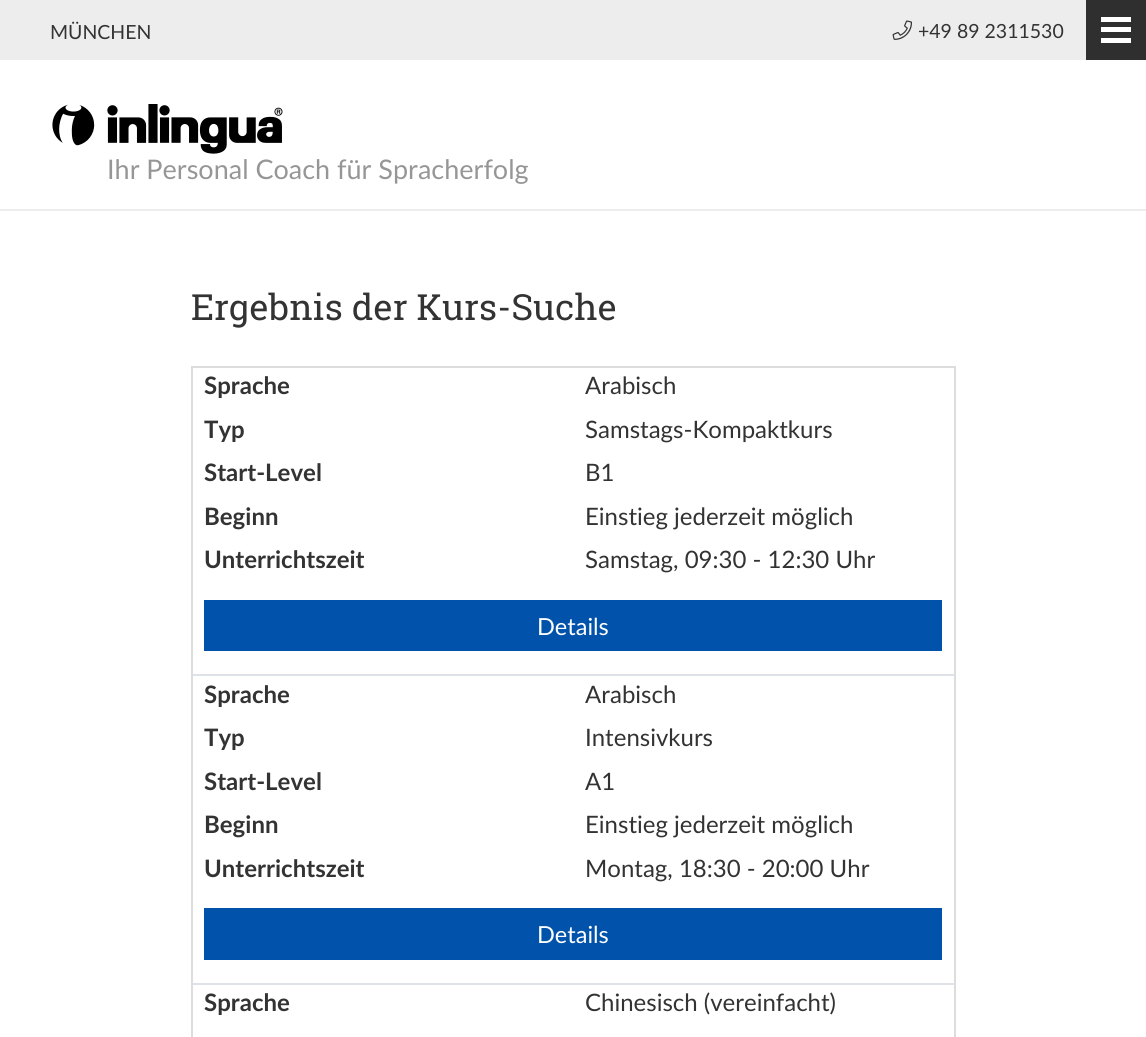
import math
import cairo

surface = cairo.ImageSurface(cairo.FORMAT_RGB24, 1146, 1037)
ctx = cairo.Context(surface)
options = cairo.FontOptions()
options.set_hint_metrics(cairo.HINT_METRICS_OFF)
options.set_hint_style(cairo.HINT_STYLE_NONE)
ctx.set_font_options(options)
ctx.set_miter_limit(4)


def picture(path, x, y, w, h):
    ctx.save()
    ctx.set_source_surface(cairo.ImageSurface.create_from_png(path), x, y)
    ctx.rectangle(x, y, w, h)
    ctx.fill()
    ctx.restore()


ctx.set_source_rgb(1, 1, 1)
ctx.paint()
ctx.set_source_rgb(0.929, 0.929, 0.929)
ctx.rectangle(0, 0, 1086, 60)
ctx.fill()
ctx.select_font_face("Lato")
ctx.set_font_size(19.5)
ctx.set_source_rgb(0.2, 0.2, 0.2)
ctx.move_to(50, 39)
ctx.show_text("MÜNCHEN")
picture("img1.png", 892, 20, 20, 20)
ctx.move_to(918, 38)
ctx.show_text("+49 89 2311530")
ctx.set_source_rgb(0.184, 0.184, 0.184)
ctx.rectangle(1086, 0, 60, 60)
ctx.fill()
ctx.set_source_rgb(1, 1, 1)
ctx.rectangle(1101, 27, 30, 5)
ctx.fill()
ctx.rectangle(1101, 17, 30, 5)
ctx.fill()
ctx.rectangle(1101, 38, 30, 5)
ctx.fill()
ctx.set_source_rgb(0.929, 0.929, 0.929)
ctx.rectangle(0, 209, 1146, 2)
ctx.fill()
picture("img2.png", 52, 104, 231, 50)
ctx.set_font_size(27)
ctx.set_source_rgb(0.588, 0.588, 0.588)
ctx.move_to(107, 179)
ctx.show_text("Ihr Personal Coach für Spracherfolg")
ctx.select_font_face("Roboto Slab")
ctx.set_font_size(36)
ctx.set_source_rgb(0.2, 0.2, 0.2)
ctx.move_to(191, 320)
ctx.show_text("Ergebnis der Kurs-Suche")
ctx.set_source_rgb(0.867, 0.867, 0.867)
ctx.rectangle(191, 366, 765, 2)
ctx.fill()
ctx.set_source_rgb(0.871, 0.886, 0.902)
ctx.rectangle(191, 674, 765, 2)
ctx.fill()
ctx.rectangle(191, 983, 765, 2)
ctx.fill()
ctx.set_source_rgb(0.867, 0.867, 0.867)
ctx.rectangle(954, 983, 2, 54)
ctx.fill()
ctx.rectangle(954, 674, 2, 310)
ctx.fill()
ctx.rectangle(954, 366, 2, 309)
ctx.fill()
ctx.rectangle(191, 983, 2, 54)
ctx.fill()
ctx.rectangle(191, 674, 2, 310)
ctx.fill()
ctx.rectangle(191, 366, 2, 309)
ctx.fill()
ctx.select_font_face("Lato", cairo.FONT_SLANT_NORMAL, cairo.FONT_WEIGHT_BOLD)
ctx.set_font_size(24)
ctx.set_source_rgb(0.2, 0.2, 0.2)
ctx.move_to(204, 394)
ctx.show_text("Sprache")
ctx.select_font_face("Lato")
ctx.move_to(585, 394)
ctx.show_text("Arabisch")
ctx.select_font_face("Lato", cairo.FONT_SLANT_NORMAL, cairo.FONT_WEIGHT_BOLD)
ctx.move_to(204, 438)
ctx.show_text("Typ")
ctx.select_font_face("Lato")
ctx.move_to(585, 438)
ctx.show_text("Samstags-Kompaktkurs")
ctx.select_font_face("Lato", cairo.FONT_SLANT_NORMAL, cairo.FONT_WEIGHT_BOLD)
ctx.move_to(204, 481)
ctx.show_text("Start-Level")
ctx.select_font_face("Lato")
ctx.move_to(585, 481)
ctx.show_text("B1")
ctx.select_font_face("Lato", cairo.FONT_SLANT_NORMAL, cairo.FONT_WEIGHT_BOLD)
ctx.move_to(204, 525)
ctx.show_text("Beginn")
ctx.select_font_face("Lato")
ctx.move_to(585, 525)
ctx.show_text("Einstieg jederzeit möglich")
ctx.select_font_face("Lato", cairo.FONT_SLANT_NORMAL, cairo.FONT_WEIGHT_BOLD)
ctx.move_to(204, 568)
ctx.show_text("Unterrichtszeit")
ctx.select_font_face("Lato")
ctx.move_to(585, 568)
ctx.show_text("Samstag, 09:30 - 12:30 Uhr")
ctx.set_source_rgb(0, 0.322, 0.667)
ctx.rectangle(204, 600, 738, 51)
ctx.fill()
ctx.set_font_size(23.5)
ctx.set_source_rgb(1, 1, 1)
ctx.move_to(537, 635)
ctx.show_text("Details")
ctx.select_font_face("Lato", cairo.FONT_SLANT_NORMAL, cairo.FONT_WEIGHT_BOLD)
ctx.set_font_size(24)
ctx.set_source_rgb(0.2, 0.2, 0.2)
ctx.move_to(204, 703)
ctx.show_text("Sprache")
ctx.select_font_face("Lato")
ctx.move_to(585, 703)
ctx.show_text("Arabisch")
ctx.select_font_face("Lato", cairo.FONT_SLANT_NORMAL, cairo.FONT_WEIGHT_BOLD)
ctx.move_to(204, 746)
ctx.show_text("Typ")
ctx.select_font_face("Lato")
ctx.move_to(585, 746)
ctx.show_text("Intensivkurs")
ctx.select_font_face("Lato", cairo.FONT_SLANT_NORMAL, cairo.FONT_WEIGHT_BOLD)
ctx.move_to(204, 790)
ctx.show_text("Start-Level")
ctx.select_font_face("Lato")
ctx.move_to(585, 790)
ctx.show_text("A1")
ctx.select_font_face("Lato", cairo.FONT_SLANT_NORMAL, cairo.FONT_WEIGHT_BOLD)
ctx.move_to(204, 833)
ctx.show_text("Beginn")
ctx.select_font_face("Lato")
ctx.move_to(585, 833)
ctx.show_text("Einstieg jederzeit möglich")
ctx.select_font_face("Lato", cairo.FONT_SLANT_NORMAL, cairo.FONT_WEIGHT_BOLD)
ctx.move_to(204, 877)
ctx.show_text("Unterrichtszeit")
ctx.select_font_face("Lato")
ctx.move_to(585, 877)
ctx.show_text("Montag, 18:30 - 20:00 Uhr")
ctx.set_source_rgb(0, 0.322, 0.667)
ctx.rectangle(204, 908, 738, 52)
ctx.fill()
ctx.set_font_size(23.5)
ctx.set_source_rgb(1, 1, 1)
ctx.move_to(537, 943)
ctx.show_text("Details")
ctx.select_font_face("Lato", cairo.FONT_SLANT_NORMAL, cairo.FONT_WEIGHT_BOLD)
ctx.set_font_size(24)
ctx.set_source_rgb(0.2, 0.2, 0.2)
ctx.move_to(204, 1011)
ctx.show_text("Sprache")
ctx.select_font_face("Lato")
ctx.move_to(585, 1011)
ctx.show_text("Chinesisch (vereinfacht)")
surface.write_to_png("page.png")
